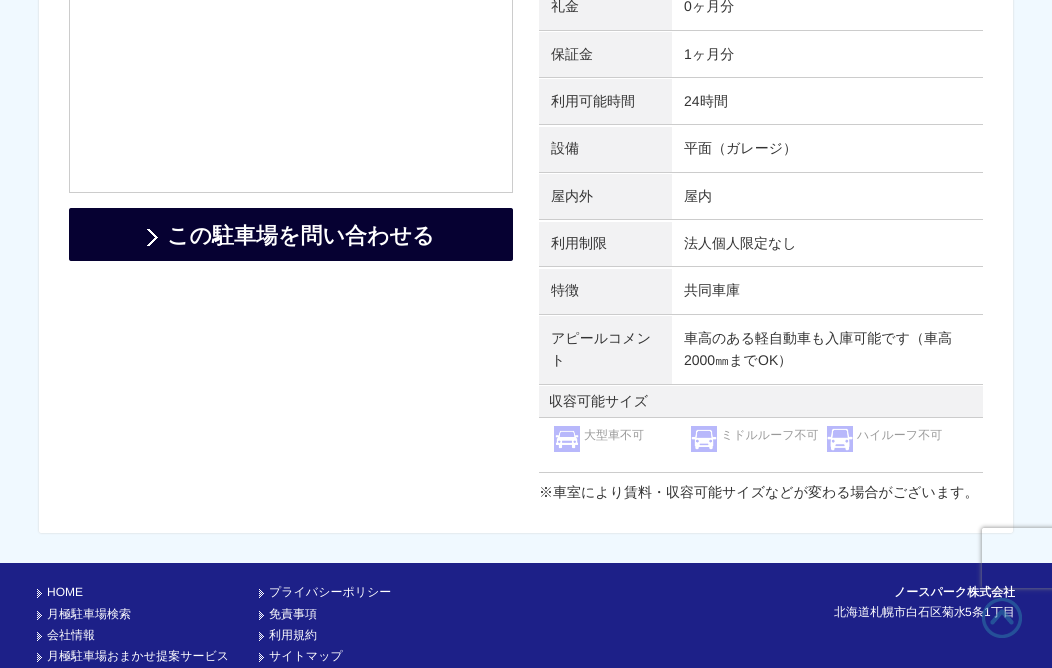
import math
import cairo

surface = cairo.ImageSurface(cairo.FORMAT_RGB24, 1052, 668)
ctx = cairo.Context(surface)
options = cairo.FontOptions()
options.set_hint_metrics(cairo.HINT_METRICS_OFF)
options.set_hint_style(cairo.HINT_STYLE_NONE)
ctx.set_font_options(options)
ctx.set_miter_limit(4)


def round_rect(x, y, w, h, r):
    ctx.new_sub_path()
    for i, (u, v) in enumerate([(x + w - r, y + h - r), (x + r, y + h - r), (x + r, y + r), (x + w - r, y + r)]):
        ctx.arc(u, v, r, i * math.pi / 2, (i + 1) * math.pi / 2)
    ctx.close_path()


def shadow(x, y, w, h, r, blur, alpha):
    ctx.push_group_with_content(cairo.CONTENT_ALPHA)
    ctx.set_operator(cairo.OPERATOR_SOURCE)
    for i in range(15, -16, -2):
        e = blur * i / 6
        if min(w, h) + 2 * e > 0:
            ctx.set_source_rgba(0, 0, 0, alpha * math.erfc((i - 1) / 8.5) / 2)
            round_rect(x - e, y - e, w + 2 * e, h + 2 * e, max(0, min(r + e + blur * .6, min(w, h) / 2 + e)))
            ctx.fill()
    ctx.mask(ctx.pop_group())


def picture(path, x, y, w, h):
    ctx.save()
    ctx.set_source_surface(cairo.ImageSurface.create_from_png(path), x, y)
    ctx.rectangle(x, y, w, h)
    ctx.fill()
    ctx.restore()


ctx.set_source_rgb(0.941, 0.973, 1)
ctx.paint()
ctx.set_source_rgb(0.8, 0.8, 0.8)
shadow(39, -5, 974, 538, 2, 1, 0.8)
ctx.set_source_rgb(1, 1, 1)
round_rect(39, -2, 974, 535, 2)
ctx.fill()
ctx.rectangle(69.5, -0.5, 443, 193)
ctx.set_source_rgb(0.8, 0.8, 0.8)
ctx.set_line_width(1)
ctx.stroke()
ctx.set_source_rgb(0.024, 0.004, 0.196)
round_rect(69, 208, 444, 53, 2)
ctx.fill()
picture("img1.png", 147, 229, 11, 17)
ctx.select_font_face("WenQuanYi Zen Hei", cairo.FONT_SLANT_NORMAL, cairo.FONT_WEIGHT_BOLD)
ctx.set_font_size(22)
ctx.set_source_rgb(1, 1, 1)
ctx.move_to(167, 243)
ctx.show_text("この駐車場を問い合わせる")
ctx.set_source_rgb(0.949, 0.949, 0.953)
ctx.rectangle(539, 0, 133, 30)
ctx.fill()
ctx.select_font_face("WenQuanYi Zen Hei Medium")
ctx.set_font_size(14)
ctx.set_source_rgb(0.2, 0.2, 0.2)
ctx.move_to(551, 11)
ctx.show_text("礼金")
ctx.set_source_rgb(0.8, 0.8, 0.8)
ctx.rectangle(539, 30, 444, 1)
ctx.fill()
ctx.select_font_face("Liberation Sans")
ctx.set_source_rgb(0.2, 0.2, 0.2)
ctx.move_to(684, 11)
ctx.show_text("0")
ctx.select_font_face("WenQuanYi Zen Hei Medium")
ctx.move_to(692, 11)
ctx.show_text("ヶ月分")
ctx.set_source_rgb(0.949, 0.949, 0.953)
ctx.rectangle(539, 32, 133, 45)
ctx.fill()
ctx.set_source_rgb(0.2, 0.2, 0.2)
ctx.move_to(551, 59)
ctx.show_text("保証金")
ctx.set_source_rgb(0.8, 0.8, 0.8)
ctx.rectangle(539, 77, 444, 1)
ctx.fill()
ctx.select_font_face("Liberation Sans")
ctx.set_source_rgb(0.2, 0.2, 0.2)
ctx.move_to(684, 59)
ctx.show_text("1")
ctx.select_font_face("WenQuanYi Zen Hei Medium")
ctx.move_to(692, 59)
ctx.show_text("ヶ月分")
ctx.set_source_rgb(0.949, 0.949, 0.953)
ctx.rectangle(539, 79, 133, 45)
ctx.fill()
ctx.set_source_rgb(0.2, 0.2, 0.2)
ctx.move_to(551, 106)
ctx.show_text("利用可能時間")
ctx.set_source_rgb(0.8, 0.8, 0.8)
ctx.rectangle(539, 124, 444, 1)
ctx.fill()
ctx.select_font_face("Liberation Sans")
ctx.set_source_rgb(0.2, 0.2, 0.2)
ctx.move_to(684, 106)
ctx.show_text("24")
ctx.select_font_face("WenQuanYi Zen Hei Medium")
ctx.move_to(700, 106)
ctx.show_text("時間")
ctx.set_source_rgb(0.949, 0.949, 0.953)
ctx.rectangle(539, 127, 133, 45)
ctx.fill()
ctx.set_source_rgb(0.2, 0.2, 0.2)
ctx.move_to(551, 153)
ctx.show_text("設備")
ctx.set_source_rgb(0.8, 0.8, 0.8)
ctx.rectangle(539, 172, 444, 1)
ctx.fill()
ctx.set_source_rgb(0.2, 0.2, 0.2)
ctx.move_to(684, 153)
ctx.show_text("平面（ガレージ）")
ctx.set_source_rgb(0.949, 0.949, 0.953)
ctx.rectangle(539, 174, 133, 45)
ctx.fill()
ctx.set_source_rgb(0.2, 0.2, 0.2)
ctx.move_to(551, 201)
ctx.show_text("屋内外")
ctx.set_source_rgb(0.8, 0.8, 0.8)
ctx.rectangle(539, 219, 444, 1)
ctx.fill()
ctx.set_source_rgb(0.2, 0.2, 0.2)
ctx.move_to(684, 201)
ctx.show_text("屋内")
ctx.set_source_rgb(0.949, 0.949, 0.953)
ctx.rectangle(539, 222, 133, 44)
ctx.fill()
ctx.set_source_rgb(0.2, 0.2, 0.2)
ctx.move_to(551, 248)
ctx.show_text("利用制限")
ctx.set_source_rgb(0.8, 0.8, 0.8)
ctx.rectangle(539, 266, 444, 1)
ctx.fill()
ctx.set_source_rgb(0.2, 0.2, 0.2)
ctx.move_to(684, 248)
ctx.show_text("法人個人限定なし")
ctx.set_source_rgb(0.949, 0.949, 0.953)
ctx.rectangle(539, 269, 133, 45)
ctx.fill()
ctx.set_source_rgb(0.2, 0.2, 0.2)
ctx.move_to(551, 295)
ctx.show_text("特徴")
ctx.set_source_rgb(0.8, 0.8, 0.8)
ctx.rectangle(539, 314, 444, 1)
ctx.fill()
ctx.set_source_rgb(0.2, 0.2, 0.2)
ctx.move_to(684, 295)
ctx.show_text("共同車庫")
ctx.set_source_rgb(0.949, 0.949, 0.953)
ctx.rectangle(539, 316, 133, 68)
ctx.fill()
ctx.set_source_rgb(0.2, 0.2, 0.2)
ctx.move_to(551, 343)
ctx.show_text("アピールコメン")
ctx.move_to(551, 365)
ctx.show_text("ト")
ctx.set_source_rgb(0.8, 0.8, 0.8)
ctx.rectangle(539, 384, 444, 1)
ctx.fill()
ctx.set_source_rgb(0.2, 0.2, 0.2)
ctx.move_to(684, 343)
ctx.show_text("車高のある軽自動車も入庫可能です（車高")
ctx.select_font_face("Liberation Sans")
ctx.move_to(684, 365)
ctx.show_text("2000")
ctx.select_font_face("WenQuanYi Zen Hei Medium")
ctx.move_to(715, 365)
ctx.show_text("㎜まで")
ctx.select_font_face("Liberation Sans")
ctx.move_to(758, 365)
ctx.show_text("OK")
ctx.select_font_face("WenQuanYi Zen Hei Medium")
ctx.move_to(778, 365)
ctx.show_text("）")
ctx.set_source_rgb(0.8, 0.8, 0.8)
ctx.rectangle(539, 472, 444, 1)
ctx.fill()
ctx.set_source_rgb(0.949, 0.949, 0.953)
ctx.rectangle(539, 386, 444, 31)
ctx.fill()
ctx.set_source_rgb(0.8, 0.8, 0.8)
ctx.rectangle(539, 417, 444, 1)
ctx.fill()
ctx.set_source_rgb(0.2, 0.2, 0.2)
ctx.move_to(549, 406)
ctx.show_text("収容可能サイズ")
picture("img2.png", 554, 426, 26, 26)
ctx.set_font_size(12)
ctx.set_source_rgb(0.6, 0.6, 0.6)
ctx.move_to(584, 439)
ctx.show_text("大型車不可")
picture("img3.png", 691, 426, 26, 26)
ctx.move_to(721, 439)
ctx.show_text("ミドルルーフ不可")
picture("img4.png", 827, 426, 26, 26)
ctx.move_to(857, 439)
ctx.show_text("ハイルーフ不可")
ctx.set_font_size(14)
ctx.set_source_rgb(0.2, 0.2, 0.2)
ctx.move_to(539, 497)
ctx.show_text("※車室により賃料・収容可能サイズなどが変わる場合がございます。")
ctx.set_source_rgb(0.114, 0.125, 0.533)
ctx.rectangle(0, 563, 1052, 105)
ctx.fill()
ctx.save()
ctx.set_fill_rule(cairo.FILL_RULE_EVEN_ODD)
ctx.new_path()
ctx.move_to(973, 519)
ctx.line_to(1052, 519)
ctx.line_to(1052, 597)
ctx.line_to(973, 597)
ctx.close_path()
ctx.move_to(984, 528)
ctx.line_to(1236, 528)
ctx.curve_to(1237, 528, 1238, 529, 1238, 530)
ctx.line_to(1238, 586)
ctx.curve_to(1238, 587, 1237, 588, 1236, 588)
ctx.line_to(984, 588)
ctx.curve_to(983, 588, 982, 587, 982, 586)
ctx.line_to(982, 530)
ctx.curve_to(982, 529, 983, 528, 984, 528)
ctx.close_path()
ctx.clip()
ctx.set_source_rgb(0.502, 0.502, 0.502)
shadow(982, 528, 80, 60, 2, 2.5, 1)
ctx.restore()
picture("img5.png", 37, 589, 5, 9)
ctx.select_font_face("Liberation Sans")
ctx.set_font_size(12)
ctx.set_source_rgb(1, 1, 1)
ctx.move_to(47, 596)
ctx.show_text("HOME")
picture("img5.png", 37, 611, 5, 9)
ctx.select_font_face("WenQuanYi Zen Hei Medium")
ctx.move_to(47, 618)
ctx.show_text("月極駐車場検索")
picture("img5.png", 37, 632, 5, 9)
ctx.move_to(47, 639)
ctx.show_text("会社情報")
picture("img5.png", 37, 653, 5, 9)
ctx.move_to(47, 660)
ctx.show_text("月極駐車場おまかせ提案サービス")
picture("img5.png", 259, 589, 5, 9)
ctx.move_to(269, 596)
ctx.show_text("プライバシーポリシー")
picture("img5.png", 259, 611, 5, 9)
ctx.move_to(269, 618)
ctx.show_text("免責事項")
picture("img5.png", 259, 632, 5, 9)
ctx.move_to(269, 639)
ctx.show_text("利用規約")
picture("img5.png", 259, 653, 5, 9)
ctx.move_to(269, 660)
ctx.show_text("サイトマップ")
ctx.select_font_face("WenQuanYi Zen Hei", cairo.FONT_SLANT_NORMAL, cairo.FONT_WEIGHT_BOLD)
ctx.move_to(894, 596)
ctx.show_text("ノースパーク株式会社")
ctx.select_font_face("WenQuanYi Zen Hei Medium")
ctx.move_to(834, 616)
ctx.show_text("北海道札幌市白石区菊水")
ctx.select_font_face("Liberation Sans")
ctx.move_to(965, 616)
ctx.show_text("5")
ctx.select_font_face("WenQuanYi Zen Hei Medium")
ctx.move_to(972, 616)
ctx.show_text("条")
ctx.select_font_face("Liberation Sans")
ctx.move_to(984, 616)
ctx.show_text("1")
ctx.select_font_face("WenQuanYi Zen Hei Medium")
ctx.move_to(991, 616)
ctx.show_text("丁目")
picture("img6.png", 982, 598, 40, 40)
surface.write_to_png("page.png")
